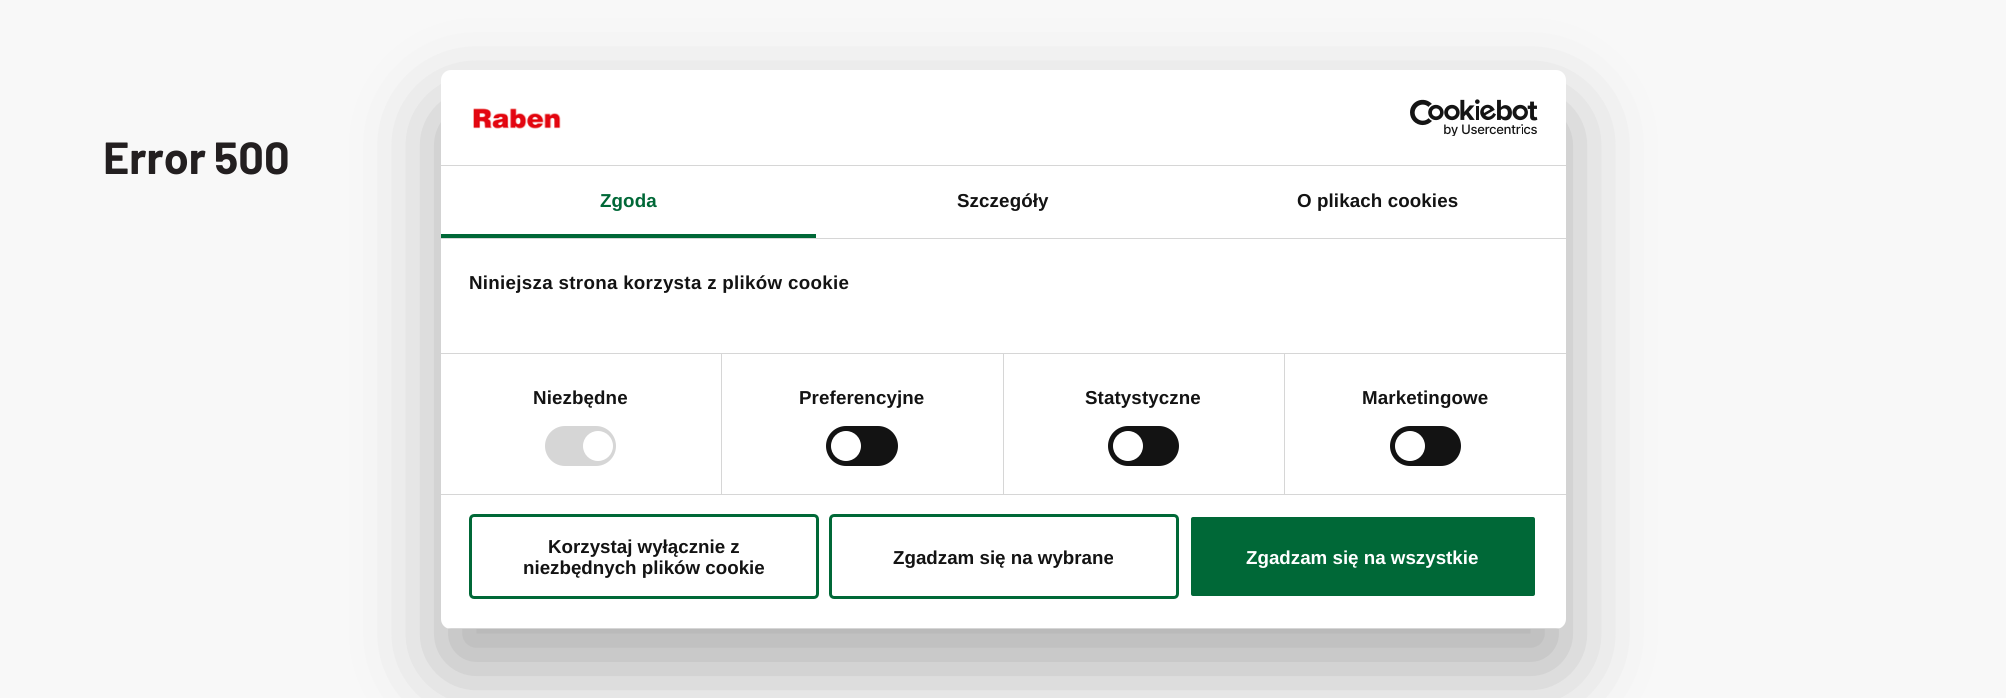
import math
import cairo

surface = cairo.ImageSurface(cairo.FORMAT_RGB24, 2006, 698)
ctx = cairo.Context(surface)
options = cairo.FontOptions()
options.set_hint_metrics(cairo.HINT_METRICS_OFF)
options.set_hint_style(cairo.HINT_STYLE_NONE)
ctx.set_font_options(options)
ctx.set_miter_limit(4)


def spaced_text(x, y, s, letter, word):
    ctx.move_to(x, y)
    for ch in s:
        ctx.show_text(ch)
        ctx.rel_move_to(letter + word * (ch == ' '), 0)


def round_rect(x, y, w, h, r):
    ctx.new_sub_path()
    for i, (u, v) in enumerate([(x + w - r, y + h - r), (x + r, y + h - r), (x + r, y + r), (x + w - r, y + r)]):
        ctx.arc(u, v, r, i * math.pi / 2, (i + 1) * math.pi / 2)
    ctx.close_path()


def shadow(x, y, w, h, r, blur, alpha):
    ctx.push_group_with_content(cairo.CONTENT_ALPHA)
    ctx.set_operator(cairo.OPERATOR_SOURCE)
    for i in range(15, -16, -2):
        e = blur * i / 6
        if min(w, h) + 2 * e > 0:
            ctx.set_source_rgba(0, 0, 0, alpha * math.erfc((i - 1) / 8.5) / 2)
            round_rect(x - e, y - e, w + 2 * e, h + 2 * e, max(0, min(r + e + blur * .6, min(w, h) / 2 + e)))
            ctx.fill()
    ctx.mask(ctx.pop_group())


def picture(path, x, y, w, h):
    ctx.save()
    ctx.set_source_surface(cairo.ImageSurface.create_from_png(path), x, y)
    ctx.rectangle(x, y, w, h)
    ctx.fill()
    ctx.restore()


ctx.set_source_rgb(0.969, 0.969, 0.969)
ctx.paint()
ctx.select_font_face("Barlow", cairo.FONT_SLANT_NORMAL, cairo.FONT_WEIGHT_BOLD)
ctx.set_font_size(45)
ctx.set_source_rgb(0.137, 0.122, 0.125)
spaced_text(103, 174, "Error 500", 0, -1)
ctx.set_source_rgb(0, 0, 0)
shadow(441, 110, 1125, 559, 10, 42.5, 0.3)
ctx.set_source_rgb(1, 1, 1)
round_rect(441, 70, 1125, 559, 10)
ctx.fill()
ctx.set_source_rgb(0.839, 0.839, 0.839)
ctx.rectangle(441, 165, 1125, 1)
ctx.fill()
picture("img1.png", 473, 108, 88, 21)
picture("img2.png", 1410, 99, 128, 37)
ctx.rectangle(441, 238, 1125, 1)
ctx.fill()
ctx.set_source_rgb(0, 0.408, 0.216)
ctx.rectangle(441, 234, 375, 4)
ctx.fill()
ctx.select_font_face("Liberation Sans", cairo.FONT_SLANT_NORMAL, cairo.FONT_WEIGHT_BOLD)
ctx.set_font_size(18.75)
spaced_text(600, 207, "Zgoda", 0.1, 0)
ctx.set_source_rgb(0.078, 0.078, 0.078)
spaced_text(957, 207, "Szczegóły", 0.1, 0)
spaced_text(1297, 207, "O plikach cookies", 0.1, 0)
ctx.set_source_rgb(0.839, 0.839, 0.839)
ctx.rectangle(441, 353, 1125, 1)
ctx.fill()
ctx.set_source_rgb(0.078, 0.078, 0.078)
spaced_text(469, 289, "Niniejsza strona korzysta z plików cookie", 0.3, 0)
ctx.set_source_rgb(0.839, 0.839, 0.839)
ctx.rectangle(441, 494, 1125, 1)
ctx.fill()
ctx.rectangle(721, 354, 1, 140)
ctx.fill()
ctx.set_source_rgb(0.078, 0.078, 0.078)
spaced_text(533, 404, "Niezbędne", 0.1, 0)
ctx.set_source_rgb(0.839, 0.839, 0.839)
round_rect(545, 426, 71, 40, 20)
ctx.fill()
ctx.set_source_rgb(1, 1, 1)
ctx.arc(598, 446, 15, 0, 2 * math.pi)
ctx.fill()
ctx.set_source_rgb(0.839, 0.839, 0.839)
ctx.rectangle(1003, 354, 1, 140)
ctx.fill()
ctx.set_source_rgb(0.078, 0.078, 0.078)
spaced_text(799, 404, "Preferencyjne", 0.1, 0)
round_rect(826, 426, 72, 40, 20)
ctx.fill()
ctx.set_source_rgb(1, 1, 1)
ctx.arc(846, 446, 15, 0, 2 * math.pi)
ctx.fill()
ctx.set_source_rgb(0.839, 0.839, 0.839)
ctx.rectangle(1284, 354, 1, 140)
ctx.fill()
ctx.set_source_rgb(0.078, 0.078, 0.078)
spaced_text(1085, 404, "Statystyczne", 0.1, 0)
round_rect(1108, 426, 71, 40, 20)
ctx.fill()
ctx.set_source_rgb(1, 1, 1)
ctx.arc(1128, 446, 15, 0, 2 * math.pi)
ctx.fill()
ctx.set_source_rgb(0.078, 0.078, 0.078)
spaced_text(1362, 404, "Marketingowe", 0.1, 0)
round_rect(1390, 426, 71, 40, 20)
ctx.fill()
ctx.set_source_rgb(1, 1, 1)
ctx.arc(1410, 446, 15, 0, 2 * math.pi)
ctx.fill()
ctx.save()
round_rect(441, 70, 1125, 559, 10)
ctx.clip()
ctx.set_source_rgb(0.839, 0.839, 0.839)
ctx.rectangle(441, 628, 1125, 1)
ctx.fill()
ctx.restore()
round_rect(470.5, 515.5, 347, 82, 3.5)
ctx.set_source_rgb(0, 0.408, 0.216)
ctx.set_line_width(3)
ctx.stroke()
ctx.set_source_rgb(0.078, 0.078, 0.078)
ctx.move_to(548, 553)
ctx.show_text("Korzystaj wyłącznie z")
ctx.move_to(523, 574)
ctx.show_text("niezbędnych plików cookie")
round_rect(830.5, 515.5, 347, 82, 3.5)
ctx.set_source_rgb(0, 0.408, 0.216)
ctx.stroke()
ctx.set_source_rgb(0.078, 0.078, 0.078)
ctx.move_to(893, 564)
ctx.show_text("Zgadzam się na wybrane")
ctx.set_source_rgb(0, 0.408, 0.216)
round_rect(1189.5, 515.5, 347, 82, 3.5)
ctx.fill_preserve()
ctx.set_source_rgb(1, 1, 1)
ctx.stroke()
ctx.move_to(1246, 564)
ctx.show_text("Zgadzam się na wszystkie")
surface.write_to_png("page.png")
